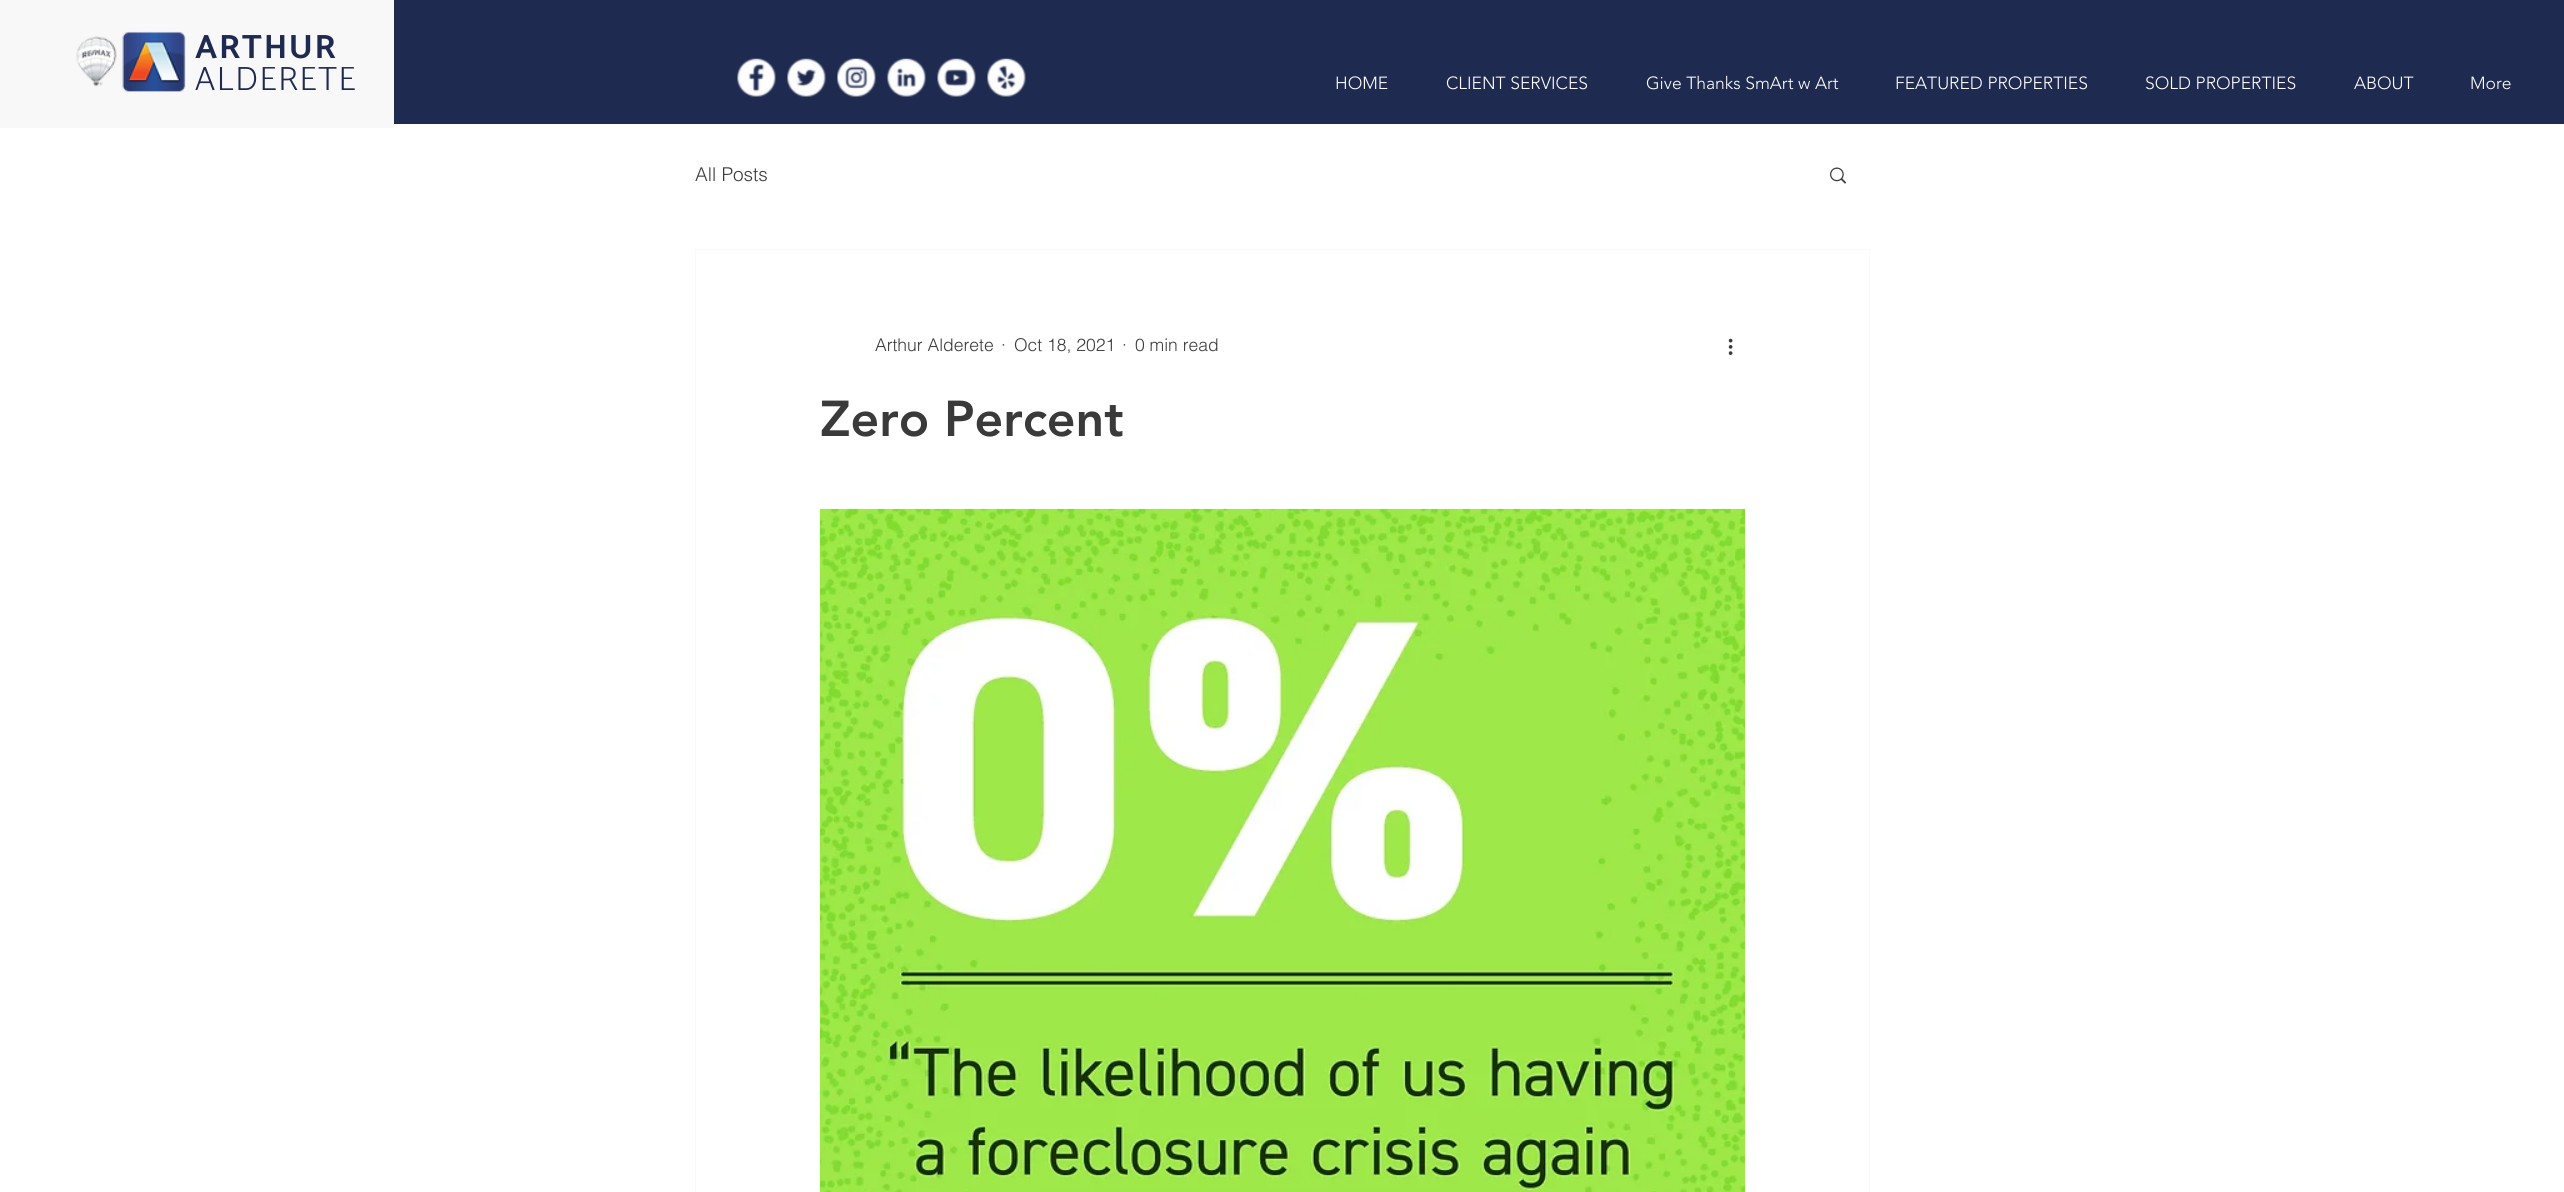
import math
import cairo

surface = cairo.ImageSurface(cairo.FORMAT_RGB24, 2564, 1192)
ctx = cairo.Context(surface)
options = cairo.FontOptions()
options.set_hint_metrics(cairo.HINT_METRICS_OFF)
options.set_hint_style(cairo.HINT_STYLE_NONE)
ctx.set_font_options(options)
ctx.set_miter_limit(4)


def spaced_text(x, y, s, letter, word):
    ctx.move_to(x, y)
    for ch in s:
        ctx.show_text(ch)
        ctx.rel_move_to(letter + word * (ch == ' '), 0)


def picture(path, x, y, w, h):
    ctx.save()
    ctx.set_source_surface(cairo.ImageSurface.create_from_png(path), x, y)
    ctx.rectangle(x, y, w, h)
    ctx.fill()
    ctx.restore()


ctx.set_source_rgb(1, 1, 1)
ctx.paint()
ctx.set_source_rgb(0.969, 0.969, 0.969)
ctx.rectangle(0, 0, 394, 128)
ctx.fill()
picture("img1.png", 76, 31, 110, 61)
ctx.select_font_face("Catamaran", cairo.FONT_SLANT_NORMAL, cairo.FONT_WEIGHT_BOLD)
ctx.set_font_size(33.75)
ctx.set_source_rgb(0.118, 0.165, 0.31)
spaced_text(195, 58, "ARTHUR", 1.75, 0)
ctx.select_font_face("Catamaran Light")
spaced_text(195, 90, "ALDERETE", 1.75, 0)
ctx.rectangle(394, 0, 2170, 124)
ctx.fill()
picture("img2.png", 737, 58, 39, 39)
picture("img3.png", 787, 58, 39, 39)
picture("img4.png", 837, 58, 39, 39)
picture("img5.png", 887, 58, 39, 39)
picture("img6.png", 937, 58, 39, 39)
picture("img7.png", 987, 58, 39, 39)
ctx.select_font_face("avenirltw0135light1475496 Light")
ctx.set_font_size(17.5)
ctx.set_source_rgb(1, 1, 1)
ctx.move_to(1335, 89)
ctx.show_text("HOME")
ctx.move_to(1446, 89)
ctx.show_text("CLIENT SERVICES")
ctx.move_to(1646, 89)
ctx.show_text("Give Thanks SmArt w Art")
ctx.move_to(1895, 89)
ctx.show_text("FEATURED PROPERTIES")
ctx.move_to(2145, 89)
ctx.show_text("SOLD PROPERTIES")
ctx.move_to(2354, 89)
ctx.show_text("ABOUT")
ctx.move_to(2470, 89)
ctx.show_text("More")
ctx.select_font_face("helvetica Light")
ctx.set_font_size(19)
ctx.set_source_rgb(0.231, 0.227, 0.227)
ctx.move_to(695, 181)
ctx.show_text("All Posts")
picture("img8.png", 1830, 167, 17, 17)
ctx.rectangle(695.5, 249.5, 1174, 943)
ctx.set_source_rgb(0.976, 0.976, 0.976)
ctx.set_line_width(1)
ctx.stroke()
ctx.set_font_size(17.5)
ctx.set_source_rgb(0.231, 0.227, 0.227)
ctx.move_to(875, 351)
ctx.show_text("Arthur Alderete")
ctx.move_to(1001, 351)
ctx.show_text("·")
ctx.move_to(1014, 351)
ctx.show_text("Oct 18, 2021")
ctx.move_to(1122, 351)
ctx.show_text("·")
ctx.move_to(1135, 351)
ctx.show_text("0 min read")
picture("img9.png", 1728, 338, 5, 17)
ctx.select_font_face("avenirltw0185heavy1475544 Black")
ctx.set_font_size(50)
ctx.move_to(820, 436)
ctx.show_text("Zero Percent")
picture("img10.png", 820, 508, 925, 684)
surface.write_to_png("page.png")
